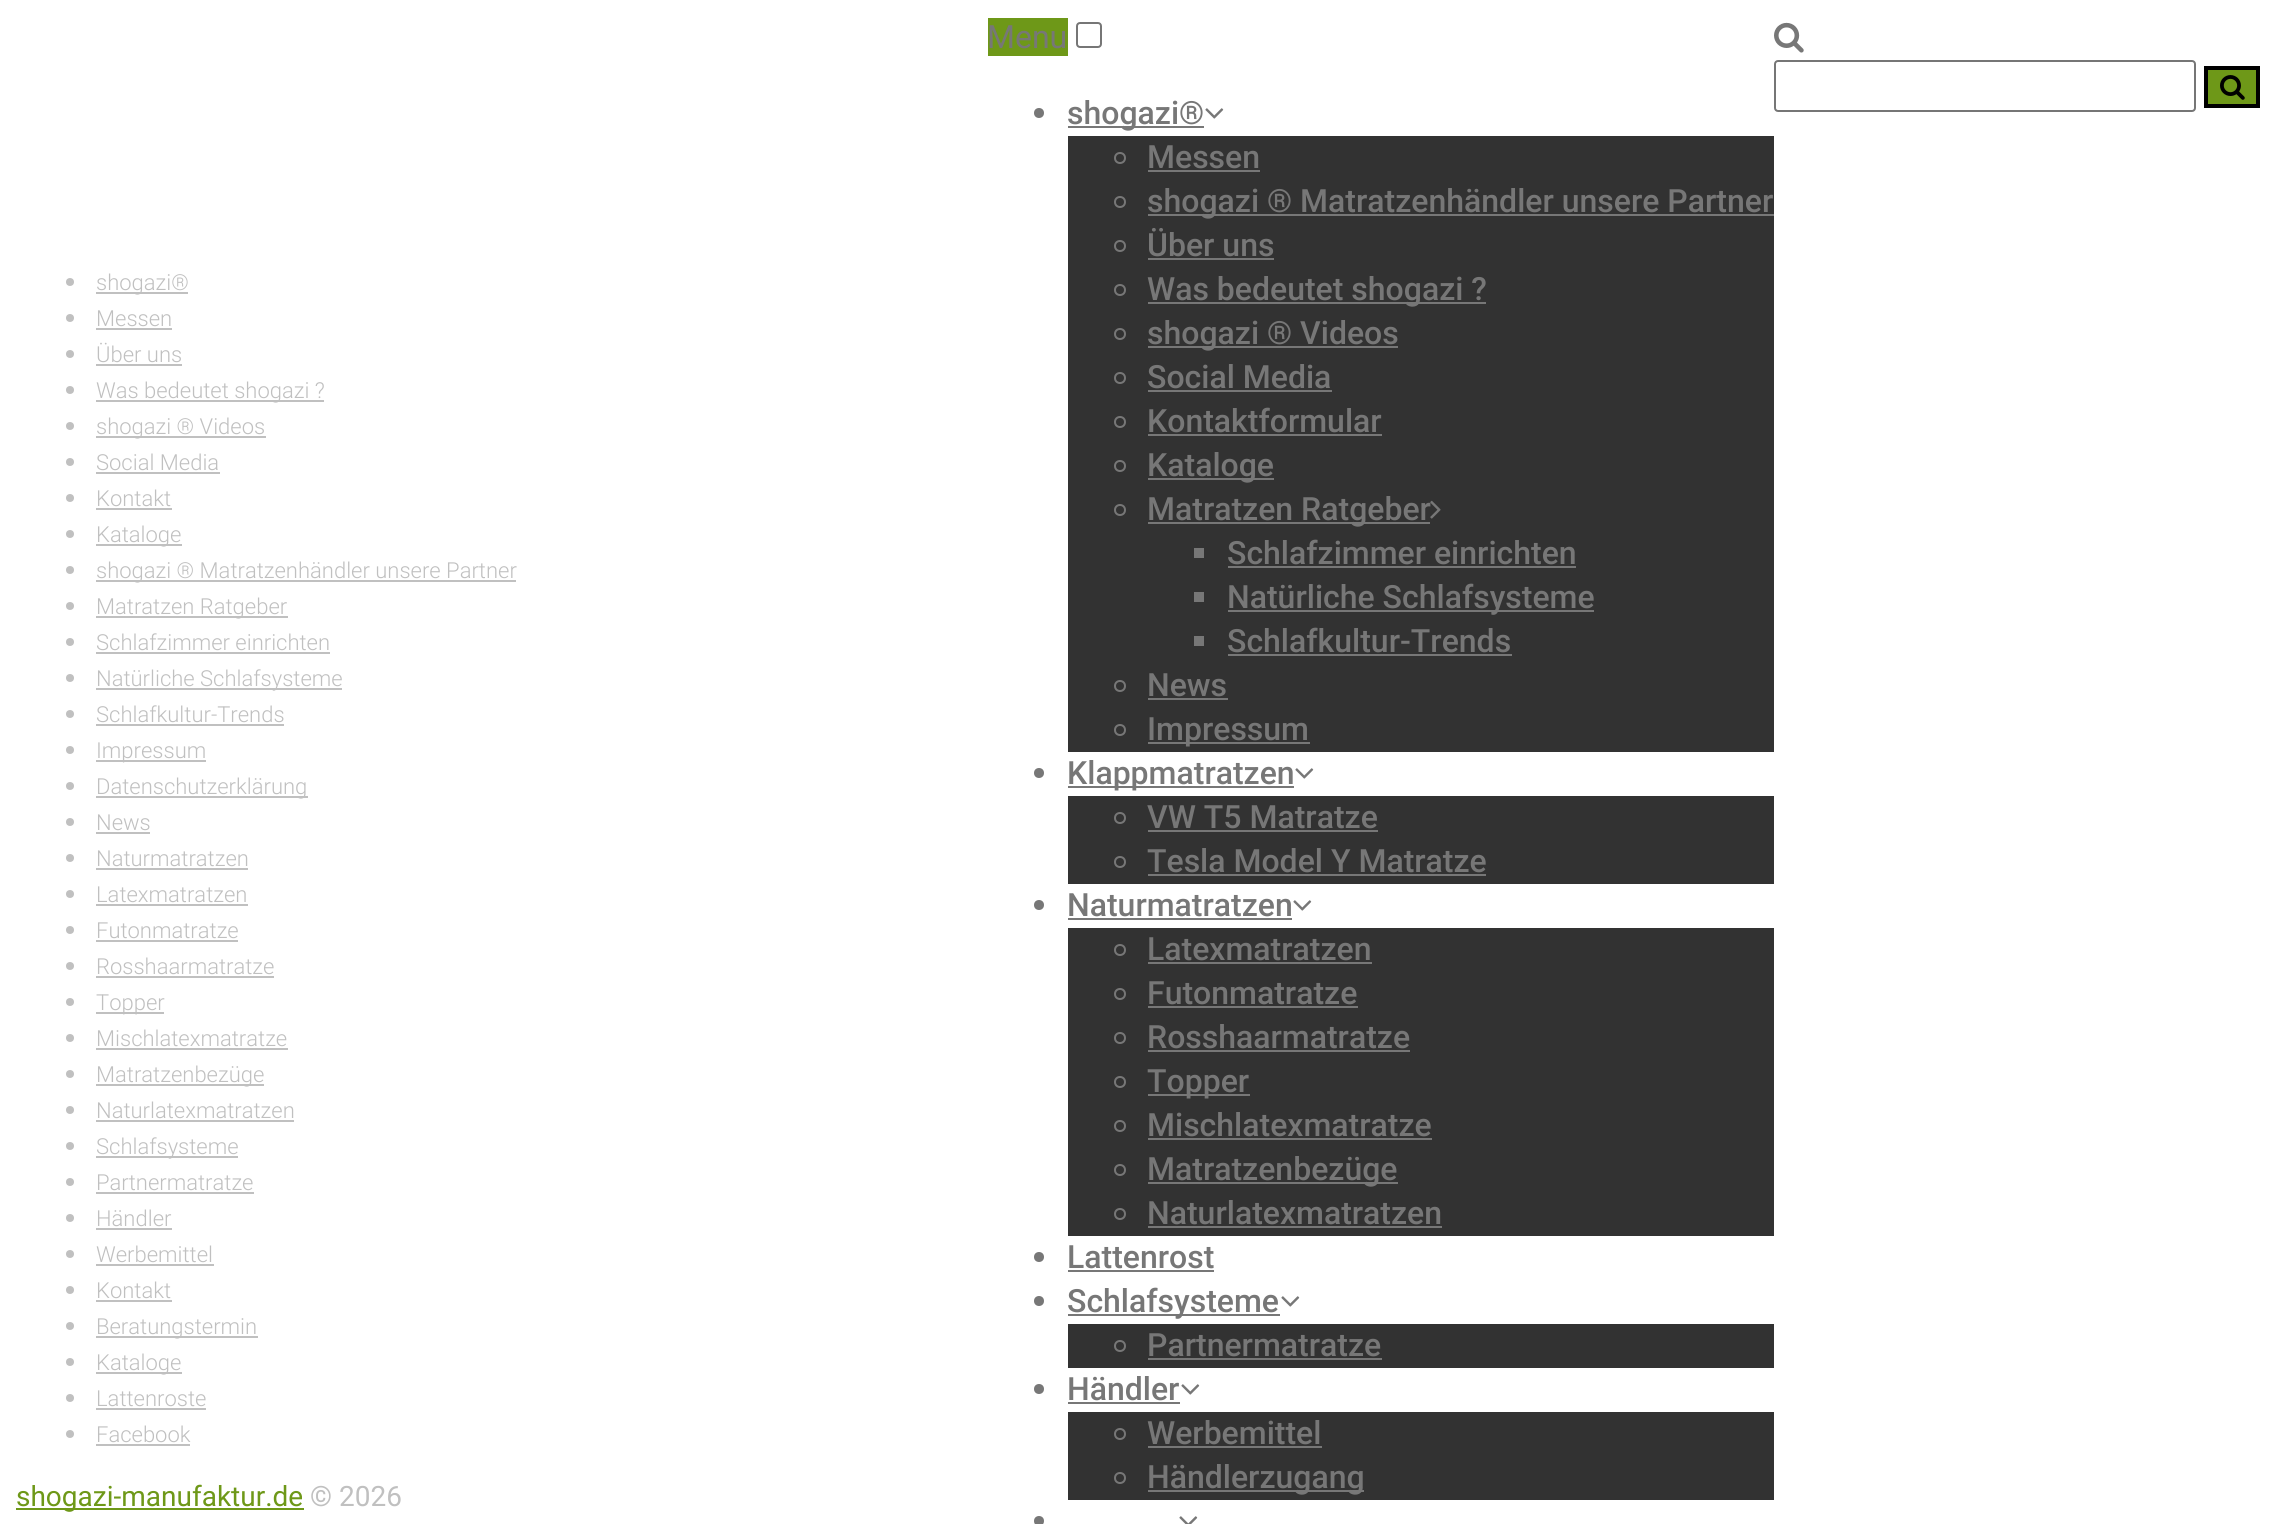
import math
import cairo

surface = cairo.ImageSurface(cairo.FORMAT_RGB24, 2275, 1524)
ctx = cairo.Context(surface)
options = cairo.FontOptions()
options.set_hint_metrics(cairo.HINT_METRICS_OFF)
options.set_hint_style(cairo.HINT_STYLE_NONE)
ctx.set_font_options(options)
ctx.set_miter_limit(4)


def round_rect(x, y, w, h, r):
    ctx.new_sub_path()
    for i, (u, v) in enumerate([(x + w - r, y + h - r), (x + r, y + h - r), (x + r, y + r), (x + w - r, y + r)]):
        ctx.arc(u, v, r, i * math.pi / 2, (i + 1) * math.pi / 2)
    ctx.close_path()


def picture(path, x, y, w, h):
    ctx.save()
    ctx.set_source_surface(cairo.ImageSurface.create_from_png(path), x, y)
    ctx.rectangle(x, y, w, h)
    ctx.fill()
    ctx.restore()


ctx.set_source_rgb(1, 1, 1)
ctx.paint()
ctx.set_source_rgb(0.753, 0.753, 0.753)
ctx.arc(70, 282, 4, 0, 2 * math.pi)
ctx.fill()
ctx.rectangle(96, 292, 92, 2)
ctx.fill()
ctx.select_font_face("Roboto Light")
ctx.set_font_size(22)
ctx.move_to(96, 290)
ctx.show_text("shogazi®")
ctx.new_path()
ctx.arc(70, 318, 4, 0, 2 * math.pi)
ctx.fill()
ctx.move_to(96, 326)
ctx.show_text("Messen")
ctx.rectangle(96, 328, 76, 2)
ctx.fill()
ctx.arc(70, 354, 4, 0, 2 * math.pi)
ctx.fill()
ctx.move_to(96, 362)
ctx.show_text("Über uns")
ctx.rectangle(96, 364, 86, 2)
ctx.fill()
ctx.arc(70, 390, 4, 0, 2 * math.pi)
ctx.fill()
ctx.rectangle(96, 400, 228, 2)
ctx.fill()
ctx.move_to(96, 398)
ctx.show_text("Was bedeutet shogazi ?")
ctx.new_path()
ctx.arc(70, 426, 4, 0, 2 * math.pi)
ctx.fill()
ctx.rectangle(96, 436, 170, 2)
ctx.fill()
ctx.move_to(96, 434)
ctx.show_text("shogazi ® Videos")
ctx.new_path()
ctx.arc(70, 462, 4, 0, 2 * math.pi)
ctx.fill()
ctx.move_to(96, 470)
ctx.show_text("Social Media")
ctx.rectangle(96, 472, 124, 2)
ctx.fill()
ctx.arc(70, 498, 4, 0, 2 * math.pi)
ctx.fill()
ctx.move_to(96, 506)
ctx.show_text("Kontakt")
ctx.rectangle(96, 508, 76, 2)
ctx.fill()
ctx.arc(70, 534, 4, 0, 2 * math.pi)
ctx.fill()
ctx.rectangle(96, 544, 86, 2)
ctx.fill()
ctx.move_to(96, 542)
ctx.show_text("Kataloge")
ctx.new_path()
ctx.arc(70, 570, 4, 0, 2 * math.pi)
ctx.fill()
ctx.rectangle(96, 580, 420, 2)
ctx.fill()
ctx.move_to(96, 578)
ctx.show_text("shogazi ® Matratzenhändler unsere Partner")
ctx.new_path()
ctx.arc(70, 606, 4, 0, 2 * math.pi)
ctx.fill()
ctx.rectangle(96, 616, 192, 2)
ctx.fill()
ctx.move_to(96, 614)
ctx.show_text("Matratzen Ratgeber")
ctx.new_path()
ctx.arc(70, 642, 4, 0, 2 * math.pi)
ctx.fill()
ctx.move_to(96, 650)
ctx.show_text("Schlafzimmer einrichten")
ctx.rectangle(96, 652, 234, 2)
ctx.fill()
ctx.arc(70, 678, 4, 0, 2 * math.pi)
ctx.fill()
ctx.rectangle(96, 688, 246, 2)
ctx.fill()
ctx.move_to(96, 686)
ctx.show_text("Natürliche Schlafsysteme")
ctx.new_path()
ctx.arc(70, 714, 4, 0, 2 * math.pi)
ctx.fill()
ctx.move_to(96, 722)
ctx.show_text("Schlafkultur-Trends")
ctx.rectangle(96, 724, 188, 2)
ctx.fill()
ctx.arc(70, 750, 4, 0, 2 * math.pi)
ctx.fill()
ctx.rectangle(96, 760, 110, 2)
ctx.fill()
ctx.move_to(96, 758)
ctx.show_text("Impressum")
ctx.new_path()
ctx.arc(70, 786, 4, 0, 2 * math.pi)
ctx.fill()
ctx.rectangle(96, 796, 212, 2)
ctx.fill()
ctx.move_to(96, 794)
ctx.show_text("Datenschutzerklärung")
ctx.new_path()
ctx.arc(70, 822, 4, 0, 2 * math.pi)
ctx.fill()
ctx.move_to(96, 830)
ctx.show_text("News")
ctx.rectangle(96, 832, 54, 2)
ctx.fill()
ctx.arc(70, 858, 4, 0, 2 * math.pi)
ctx.fill()
ctx.move_to(96, 866)
ctx.show_text("Naturmatratzen")
ctx.rectangle(96, 868, 152, 2)
ctx.fill()
ctx.arc(70, 894, 4, 0, 2 * math.pi)
ctx.fill()
ctx.move_to(96, 902)
ctx.show_text("Latexmatratzen")
ctx.rectangle(96, 904, 152, 2)
ctx.fill()
ctx.arc(70, 930, 4, 0, 2 * math.pi)
ctx.fill()
ctx.move_to(96, 938)
ctx.show_text("Futonmatratze")
ctx.rectangle(96, 940, 142, 2)
ctx.fill()
ctx.arc(70, 966, 4, 0, 2 * math.pi)
ctx.fill()
ctx.move_to(96, 974)
ctx.show_text("Rosshaarmatratze")
ctx.rectangle(96, 976, 178, 2)
ctx.fill()
ctx.arc(70, 1002, 4, 0, 2 * math.pi)
ctx.fill()
ctx.rectangle(96, 1012, 68, 2)
ctx.fill()
ctx.move_to(96, 1010)
ctx.show_text("Topper")
ctx.new_path()
ctx.arc(70, 1038, 4, 0, 2 * math.pi)
ctx.fill()
ctx.move_to(96, 1046)
ctx.show_text("Mischlatexmatratze")
ctx.rectangle(96, 1048, 192, 2)
ctx.fill()
ctx.arc(70, 1074, 4, 0, 2 * math.pi)
ctx.fill()
ctx.rectangle(96, 1084, 168, 2)
ctx.fill()
ctx.move_to(96, 1082)
ctx.show_text("Matratzenbezüge")
ctx.new_path()
ctx.arc(70, 1110, 4, 0, 2 * math.pi)
ctx.fill()
ctx.move_to(96, 1118)
ctx.show_text("Naturlatexmatratzen")
ctx.rectangle(96, 1120, 198, 2)
ctx.fill()
ctx.arc(70, 1146, 4, 0, 2 * math.pi)
ctx.fill()
ctx.rectangle(96, 1156, 142, 2)
ctx.fill()
ctx.move_to(96, 1154)
ctx.show_text("Schlafsysteme")
ctx.new_path()
ctx.arc(70, 1182, 4, 0, 2 * math.pi)
ctx.fill()
ctx.move_to(96, 1190)
ctx.show_text("Partnermatratze")
ctx.rectangle(96, 1192, 158, 2)
ctx.fill()
ctx.arc(70, 1218, 4, 0, 2 * math.pi)
ctx.fill()
ctx.move_to(96, 1226)
ctx.show_text("Händler")
ctx.rectangle(96, 1228, 76, 2)
ctx.fill()
ctx.arc(70, 1254, 4, 0, 2 * math.pi)
ctx.fill()
ctx.move_to(96, 1262)
ctx.show_text("Werbemittel")
ctx.rectangle(96, 1264, 118, 2)
ctx.fill()
ctx.arc(70, 1290, 4, 0, 2 * math.pi)
ctx.fill()
ctx.move_to(96, 1298)
ctx.show_text("Kontakt")
ctx.rectangle(96, 1300, 76, 2)
ctx.fill()
ctx.arc(70, 1326, 4, 0, 2 * math.pi)
ctx.fill()
ctx.rectangle(96, 1336, 162, 2)
ctx.fill()
ctx.move_to(96, 1334)
ctx.show_text("Beratungstermin")
ctx.new_path()
ctx.arc(70, 1362, 4, 0, 2 * math.pi)
ctx.fill()
ctx.rectangle(96, 1372, 86, 2)
ctx.fill()
ctx.move_to(96, 1370)
ctx.show_text("Kataloge")
ctx.new_path()
ctx.arc(70, 1398, 4, 0, 2 * math.pi)
ctx.fill()
ctx.move_to(96, 1406)
ctx.show_text("Lattenroste")
ctx.rectangle(96, 1408, 110, 2)
ctx.fill()
ctx.arc(70, 1434, 4, 0, 2 * math.pi)
ctx.fill()
ctx.move_to(96, 1442)
ctx.show_text("Facebook")
ctx.rectangle(96, 1444, 94, 2)
ctx.fill()
ctx.set_source_rgb(0.431, 0.596, 0.094)
ctx.rectangle(16, 1508, 288, 2)
ctx.fill()
ctx.select_font_face("Roboto")
ctx.set_font_size(28)
ctx.move_to(16, 1506)
ctx.show_text("shogazi-manufaktur.de")
ctx.set_source_rgb(0.753, 0.753, 0.753)
ctx.move_to(310, 1506)
ctx.show_text("© 2026")
ctx.set_source_rgb(0.431, 0.596, 0.094)
ctx.rectangle(988, 18, 80, 38)
ctx.fill()
ctx.set_font_size(32)
ctx.set_source_rgb(0.467, 0.467, 0.467)
ctx.move_to(987, 48)
ctx.show_text("Menu")
round_rect(1077, 23, 24, 24, 3)
ctx.set_source_rgb(0.463, 0.463, 0.463)
ctx.stroke()
ctx.set_source_rgb(0.467, 0.467, 0.467)
ctx.arc(1039, 113, 5, 0, 2 * math.pi)
ctx.fill()
ctx.rectangle(1068, 126, 136, 2)
ctx.fill()
ctx.select_font_face("Roboto Medium")
ctx.move_to(1067, 124)
ctx.show_text("shogazi®")
picture("img1.png", 1205, 108, 19, 11)
ctx.set_source_rgb(0.196, 0.196, 0.196)
ctx.rectangle(1068, 136, 706, 616)
ctx.fill()
ctx.arc(1120, 158, 5, 0, 2 * math.pi)
ctx.set_source_rgb(0.467, 0.467, 0.467)
ctx.stroke()
ctx.move_to(1147, 168)
ctx.show_text("Messen")
ctx.rectangle(1148, 170, 112, 2)
ctx.fill()
ctx.arc(1120, 202, 5, 0, 2 * math.pi)
ctx.stroke()
ctx.rectangle(1148, 214, 626, 2)
ctx.fill()
ctx.move_to(1147, 212)
ctx.show_text("shogazi ® Matratzenhändler unsere Partner")
ctx.new_path()
ctx.arc(1120, 246, 5, 0, 2 * math.pi)
ctx.stroke()
ctx.move_to(1147, 256)
ctx.show_text("Über uns")
ctx.rectangle(1148, 258, 126, 2)
ctx.fill()
ctx.arc(1120, 290, 5, 0, 2 * math.pi)
ctx.stroke()
ctx.rectangle(1148, 302, 338, 2)
ctx.fill()
ctx.move_to(1147, 300)
ctx.show_text("Was bedeutet shogazi ?")
ctx.new_path()
ctx.arc(1120, 334, 5, 0, 2 * math.pi)
ctx.stroke()
ctx.rectangle(1148, 346, 250, 2)
ctx.fill()
ctx.move_to(1147, 344)
ctx.show_text("shogazi ® Videos")
ctx.new_path()
ctx.arc(1120, 378, 5, 0, 2 * math.pi)
ctx.stroke()
ctx.move_to(1147, 388)
ctx.show_text("Social Media")
ctx.rectangle(1148, 390, 184, 2)
ctx.fill()
ctx.arc(1120, 422, 5, 0, 2 * math.pi)
ctx.stroke()
ctx.move_to(1147, 432)
ctx.show_text("Kontaktformular")
ctx.rectangle(1148, 434, 234, 2)
ctx.fill()
ctx.arc(1120, 466, 5, 0, 2 * math.pi)
ctx.stroke()
ctx.rectangle(1148, 478, 126, 2)
ctx.fill()
ctx.move_to(1147, 476)
ctx.show_text("Kataloge")
ctx.new_path()
ctx.arc(1120, 510, 5, 0, 2 * math.pi)
ctx.stroke()
ctx.rectangle(1148, 522, 282, 2)
ctx.fill()
ctx.move_to(1147, 520)
ctx.show_text("Matratzen Ratgeber")
picture("img2.png", 1430, 500, 11, 19)
ctx.rectangle(1194, 548, 10, 10)
ctx.fill()
ctx.move_to(1227, 564)
ctx.show_text("Schlafzimmer einrichten")
ctx.rectangle(1228, 566, 348, 2)
ctx.fill()
ctx.rectangle(1194, 592, 10, 10)
ctx.fill()
ctx.rectangle(1228, 610, 366, 2)
ctx.fill()
ctx.move_to(1227, 608)
ctx.show_text("Natürliche Schlafsysteme")
ctx.rectangle(1194, 636, 10, 10)
ctx.fill()
ctx.move_to(1227, 652)
ctx.show_text("Schlafkultur-Trends")
ctx.rectangle(1228, 654, 284, 2)
ctx.fill()
ctx.arc(1120, 686, 5, 0, 2 * math.pi)
ctx.stroke()
ctx.move_to(1147, 696)
ctx.show_text("News")
ctx.rectangle(1148, 698, 80, 2)
ctx.fill()
ctx.arc(1120, 730, 5, 0, 2 * math.pi)
ctx.stroke()
ctx.rectangle(1148, 742, 162, 2)
ctx.fill()
ctx.move_to(1147, 740)
ctx.show_text("Impressum")
ctx.new_path()
ctx.arc(1039, 773, 5, 0, 2 * math.pi)
ctx.fill()
ctx.rectangle(1068, 786, 226, 2)
ctx.fill()
ctx.move_to(1067, 784)
ctx.show_text("Klappmatratzen")
picture("img1.png", 1295, 768, 19, 11)
ctx.set_source_rgb(0.196, 0.196, 0.196)
ctx.rectangle(1068, 796, 706, 88)
ctx.fill()
ctx.arc(1120, 818, 5, 0, 2 * math.pi)
ctx.set_source_rgb(0.467, 0.467, 0.467)
ctx.stroke()
ctx.move_to(1147, 828)
ctx.show_text("VW T5 Matratze")
ctx.rectangle(1148, 830, 230, 2)
ctx.fill()
ctx.arc(1120, 862, 5, 0, 2 * math.pi)
ctx.stroke()
ctx.move_to(1147, 872)
ctx.show_text("Tesla Model Y Matratze")
ctx.rectangle(1148, 874, 338, 2)
ctx.fill()
ctx.arc(1039, 905, 5, 0, 2 * math.pi)
ctx.fill()
ctx.move_to(1067, 916)
ctx.show_text("Naturmatratzen")
ctx.rectangle(1068, 918, 224, 2)
ctx.fill()
picture("img1.png", 1293, 900, 19, 11)
ctx.set_source_rgb(0.196, 0.196, 0.196)
ctx.rectangle(1068, 928, 706, 308)
ctx.fill()
ctx.arc(1120, 950, 5, 0, 2 * math.pi)
ctx.set_source_rgb(0.467, 0.467, 0.467)
ctx.stroke()
ctx.move_to(1147, 960)
ctx.show_text("Latexmatratzen")
ctx.rectangle(1148, 962, 224, 2)
ctx.fill()
ctx.arc(1120, 994, 5, 0, 2 * math.pi)
ctx.stroke()
ctx.move_to(1147, 1004)
ctx.show_text("Futonmatratze")
ctx.rectangle(1148, 1006, 210, 2)
ctx.fill()
ctx.arc(1120, 1038, 5, 0, 2 * math.pi)
ctx.stroke()
ctx.move_to(1147, 1048)
ctx.show_text("Rosshaarmatratze")
ctx.rectangle(1148, 1050, 262, 2)
ctx.fill()
ctx.arc(1120, 1082, 5, 0, 2 * math.pi)
ctx.stroke()
ctx.rectangle(1148, 1094, 102, 2)
ctx.fill()
ctx.move_to(1147, 1092)
ctx.show_text("Topper")
ctx.new_path()
ctx.arc(1120, 1126, 5, 0, 2 * math.pi)
ctx.stroke()
ctx.move_to(1147, 1136)
ctx.show_text("Mischlatexmatratze")
ctx.rectangle(1148, 1138, 284, 2)
ctx.fill()
ctx.arc(1120, 1170, 5, 0, 2 * math.pi)
ctx.stroke()
ctx.rectangle(1148, 1182, 250, 2)
ctx.fill()
ctx.move_to(1147, 1180)
ctx.show_text("Matratzenbezüge")
ctx.new_path()
ctx.arc(1120, 1214, 5, 0, 2 * math.pi)
ctx.stroke()
ctx.move_to(1147, 1224)
ctx.show_text("Naturlatexmatratzen")
ctx.rectangle(1148, 1226, 294, 2)
ctx.fill()
ctx.arc(1039, 1257, 5, 0, 2 * math.pi)
ctx.fill()
ctx.move_to(1067, 1268)
ctx.show_text("Lattenrost")
ctx.rectangle(1068, 1270, 146, 2)
ctx.fill()
ctx.arc(1039, 1301, 5, 0, 2 * math.pi)
ctx.fill()
ctx.rectangle(1068, 1314, 212, 2)
ctx.fill()
ctx.move_to(1067, 1312)
ctx.show_text("Schlafsysteme")
picture("img1.png", 1281, 1296, 19, 11)
ctx.set_source_rgb(0.196, 0.196, 0.196)
ctx.rectangle(1068, 1324, 706, 44)
ctx.fill()
ctx.arc(1120, 1346, 5, 0, 2 * math.pi)
ctx.set_source_rgb(0.467, 0.467, 0.467)
ctx.stroke()
ctx.move_to(1147, 1356)
ctx.show_text("Partnermatratze")
ctx.rectangle(1148, 1358, 234, 2)
ctx.fill()
ctx.arc(1039, 1389, 5, 0, 2 * math.pi)
ctx.fill()
ctx.move_to(1067, 1400)
ctx.show_text("Händler")
ctx.rectangle(1068, 1402, 112, 2)
ctx.fill()
picture("img1.png", 1181, 1384, 19, 11)
ctx.set_source_rgb(0.196, 0.196, 0.196)
ctx.rectangle(1068, 1412, 706, 88)
ctx.fill()
ctx.arc(1120, 1434, 5, 0, 2 * math.pi)
ctx.set_source_rgb(0.467, 0.467, 0.467)
ctx.stroke()
ctx.move_to(1147, 1444)
ctx.show_text("Werbemittel")
ctx.rectangle(1148, 1446, 174, 2)
ctx.fill()
ctx.arc(1120, 1478, 5, 0, 2 * math.pi)
ctx.stroke()
ctx.rectangle(1148, 1490, 216, 2)
ctx.fill()
ctx.move_to(1147, 1488)
ctx.show_text("Händlerzugang")
ctx.new_path()
ctx.arc(1039, 1521, 5, 0, 2 * math.pi)
ctx.fill()
picture("img3.png", 1179, 1516, 19, 8)
picture("img4.png", 1774, 22, 30, 31)
round_rect(1775, 61, 420, 50, 3)
ctx.set_source_rgb(0.463, 0.463, 0.463)
ctx.stroke()
ctx.set_source_rgb(0.431, 0.596, 0.094)
ctx.rectangle(2206, 68, 52, 38)
ctx.fill_preserve()
ctx.set_source_rgb(0, 0, 0)
ctx.set_line_width(4)
ctx.stroke()
picture("img5.png", 2220, 75, 25, 25)
surface.write_to_png("page.png")
